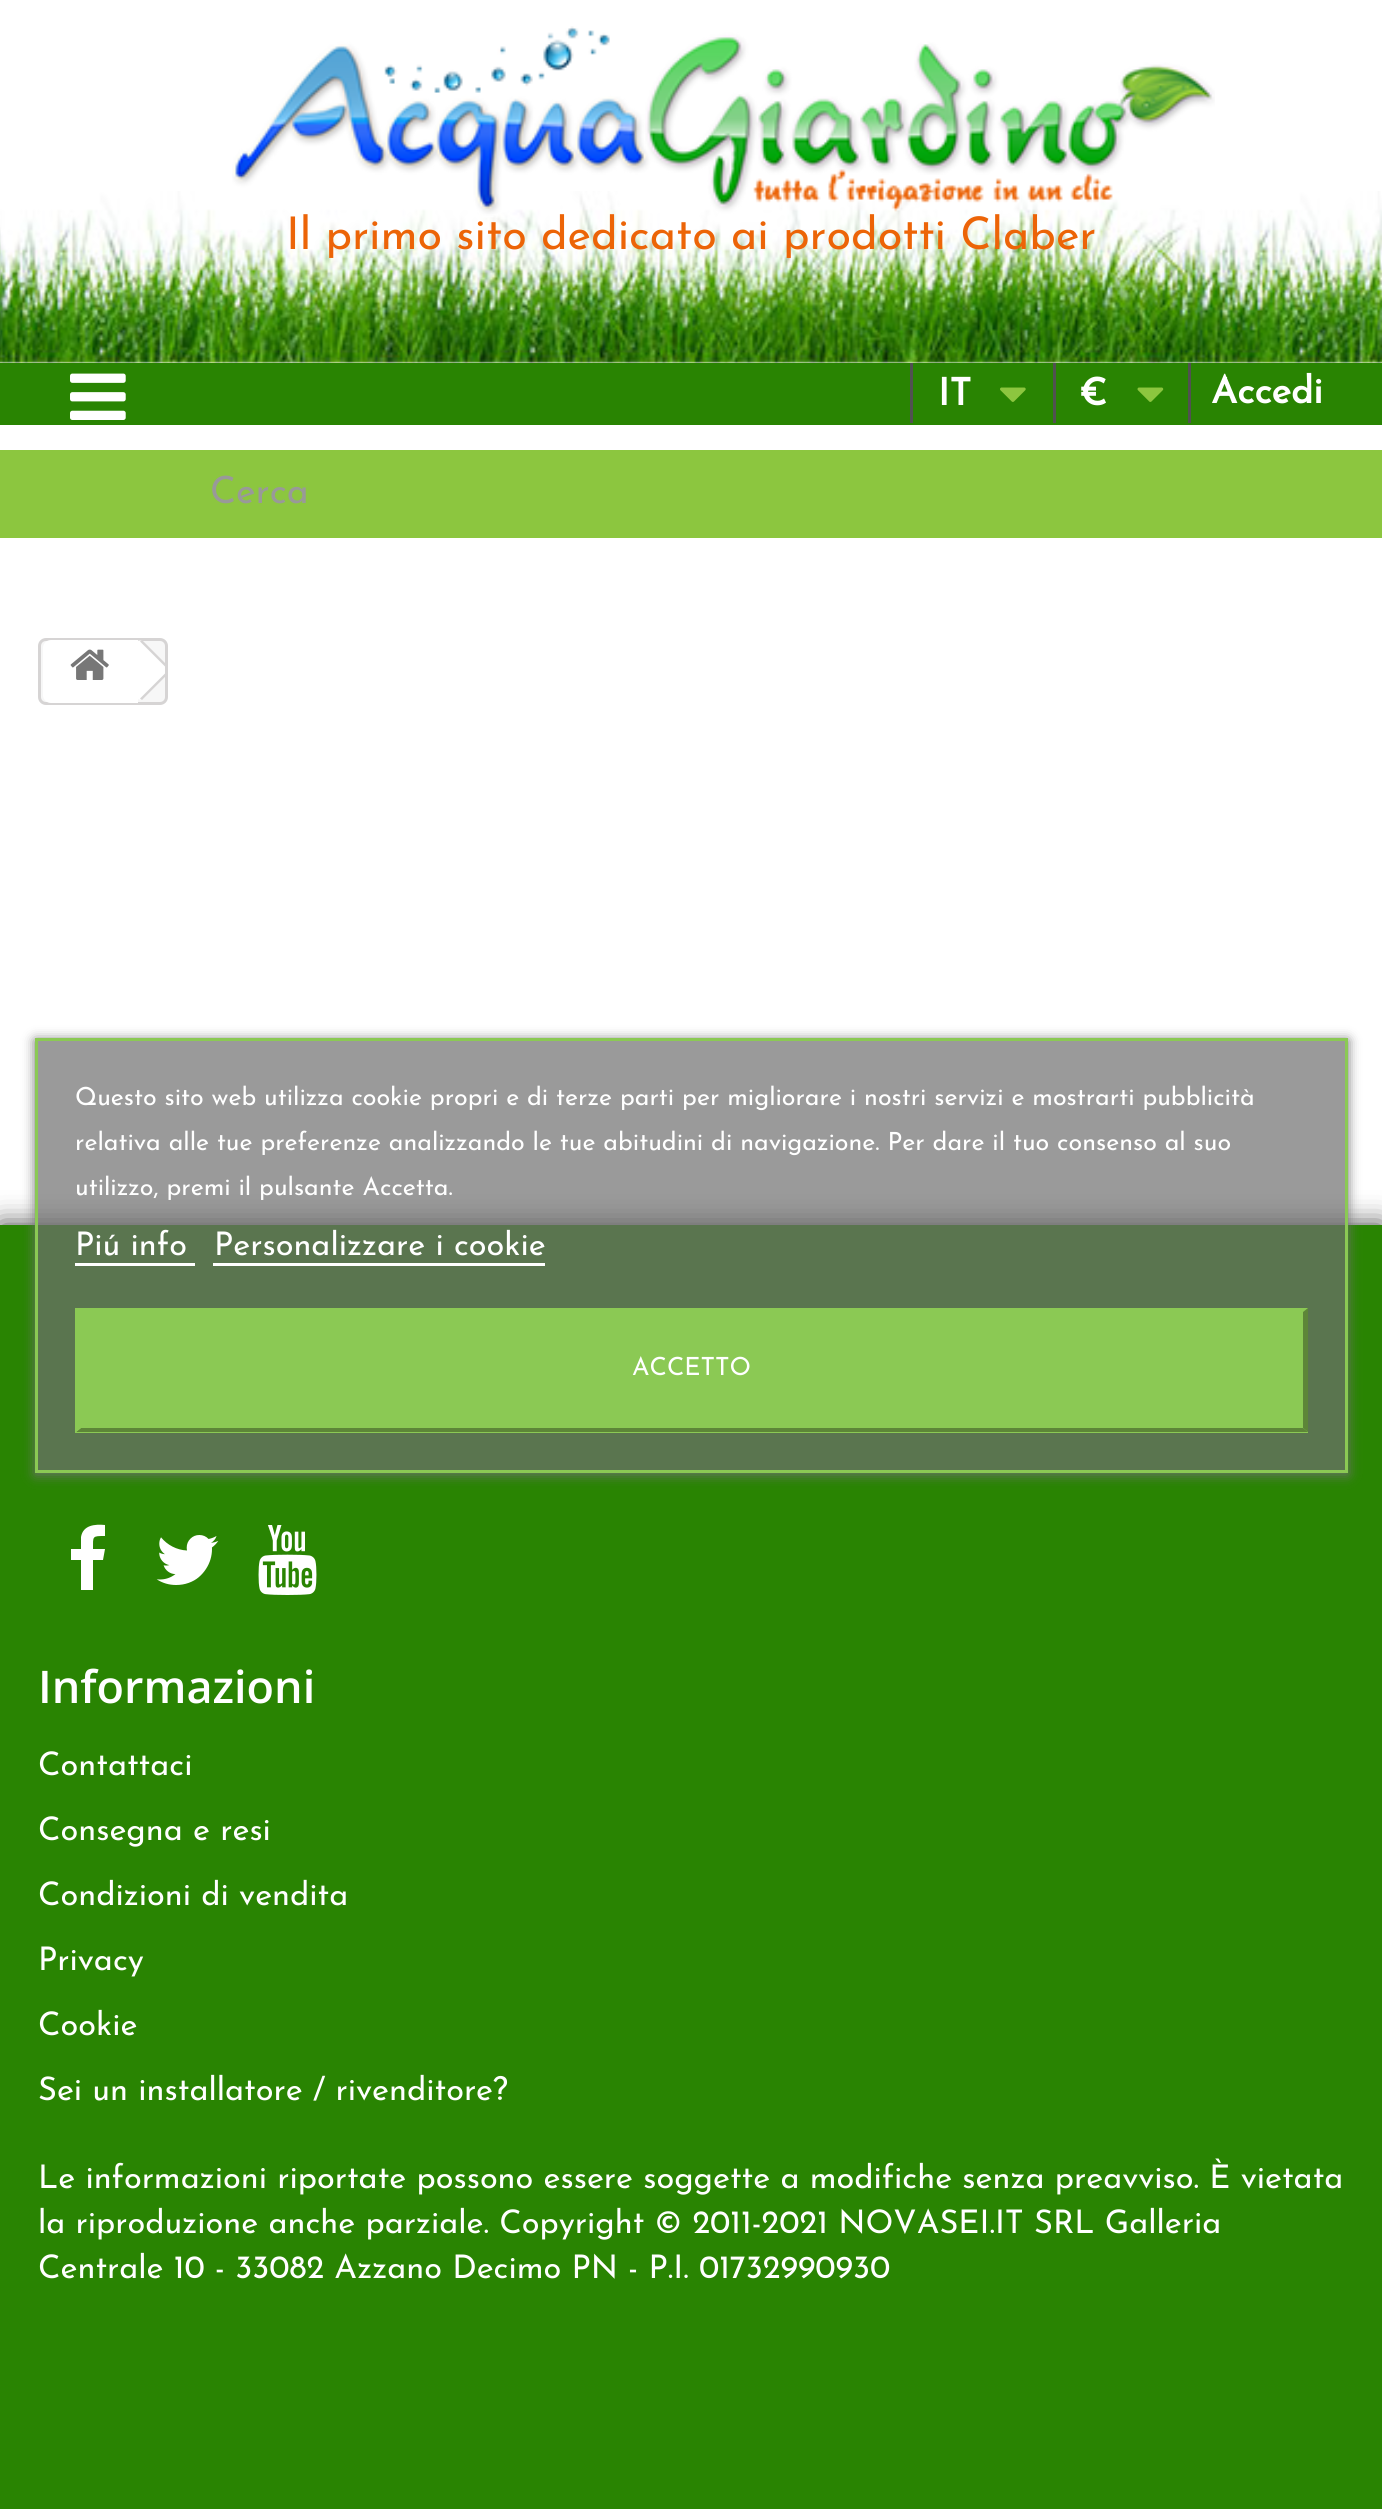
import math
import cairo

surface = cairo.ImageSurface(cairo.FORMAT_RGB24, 1382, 2509)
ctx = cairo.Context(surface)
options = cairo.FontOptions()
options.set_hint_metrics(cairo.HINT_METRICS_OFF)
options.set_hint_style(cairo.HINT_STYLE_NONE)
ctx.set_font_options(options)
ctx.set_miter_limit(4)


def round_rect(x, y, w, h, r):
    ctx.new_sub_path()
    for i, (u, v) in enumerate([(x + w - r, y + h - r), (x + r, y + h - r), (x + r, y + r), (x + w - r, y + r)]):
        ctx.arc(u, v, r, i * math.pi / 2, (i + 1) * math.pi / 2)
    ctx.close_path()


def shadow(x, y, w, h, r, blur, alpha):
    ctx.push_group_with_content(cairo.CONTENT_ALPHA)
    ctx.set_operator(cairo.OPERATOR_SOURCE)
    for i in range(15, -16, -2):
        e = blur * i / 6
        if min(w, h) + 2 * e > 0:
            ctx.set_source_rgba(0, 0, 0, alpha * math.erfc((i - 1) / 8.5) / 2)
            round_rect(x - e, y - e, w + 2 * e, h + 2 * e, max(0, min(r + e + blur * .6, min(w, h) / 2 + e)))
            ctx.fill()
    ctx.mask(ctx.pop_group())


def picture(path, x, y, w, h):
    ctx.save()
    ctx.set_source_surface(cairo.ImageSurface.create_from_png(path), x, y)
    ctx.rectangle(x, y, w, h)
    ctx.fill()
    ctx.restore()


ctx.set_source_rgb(1, 1, 1)
ctx.paint()
picture("img1.png", 0, 191, 1382, 172)
picture("img2.png", 232, 26, 983, 192)
ctx.select_font_face("Josefin Sans Thin")
ctx.set_font_size(45)
ctx.set_source_rgb(0.922, 0.392, 0.031)
ctx.move_to(286, 249)
ctx.show_text("Il primo sito dedicato ai prodotti Claber")
ctx.set_source_rgb(0.161, 0.518, 0.008)
ctx.rectangle(0, 363, 1382, 62)
ctx.fill()
picture("img3.png", 70, 373, 56, 47)
ctx.set_source_rgb(0.318, 0.318, 0.318)
ctx.rectangle(910, 363, 3, 60)
ctx.fill()
ctx.select_font_face("Josefin Sans", cairo.FONT_SLANT_NORMAL, cairo.FONT_WEIGHT_BOLD)
ctx.set_font_size(37.5)
ctx.set_source_rgb(1, 1, 1)
ctx.move_to(938, 405)
ctx.show_text("IT")
picture("img4.png", 1000, 387, 26, 15)
ctx.set_source_rgb(0.318, 0.318, 0.318)
ctx.rectangle(1053, 363, 3, 60)
ctx.fill()
ctx.set_source_rgb(1, 1, 1)
ctx.move_to(1079, 405)
ctx.show_text("€")
picture("img5.png", 1137, 387, 27, 15)
ctx.set_source_rgb(0.318, 0.318, 0.318)
ctx.rectangle(1188, 363, 3, 60)
ctx.fill()
ctx.set_source_rgb(1, 1, 1)
ctx.move_to(1211, 403)
ctx.show_text("Accedi")
ctx.set_source_rgb(0.549, 0.776, 0.247)
ctx.rectangle(0, 450, 1382, 88)
ctx.fill()
ctx.select_font_face("Josefin Sans Thin")
ctx.set_source_rgb(0.6, 0.6, 0.6)
ctx.move_to(210, 503)
ctx.show_text("Cerca")
ctx.set_source_rgb(0.965, 0.965, 0.965)
round_rect(39.5, 639.5, 127, 64, 6.5)
ctx.fill_preserve()
ctx.set_source_rgb(0.839, 0.831, 0.831)
ctx.set_line_width(3)
ctx.stroke()
ctx.set_source_rgb(1, 1, 1)
ctx.new_path()
ctx.move_to(51, 640)
ctx.line_to(138, 640)
ctx.line_to(138, 703)
ctx.line_to(51, 703)
ctx.curve_to(46.5, 703, 43, 699.5, 43, 695)
ctx.line_to(43, 648)
ctx.curve_to(43, 643.5, 46.5, 640, 51, 640)
ctx.close_path()
ctx.fill()
picture("img6.png", 70, 649, 39, 31)
ctx.new_path()
ctx.move_to(144, 642)
ctx.line_to(165, 663)
ctx.line_to(165, 677)
ctx.line_to(144, 698)
ctx.curve_to(142, 700, 138, 700, 136, 698)
ctx.line_to(112, 674)
ctx.curve_to(110, 672, 110, 668, 112, 666)
ctx.line_to(136, 642)
ctx.curve_to(138, 640, 142, 640, 144, 642)
ctx.close_path()
ctx.fill()
ctx.set_source_rgb(0.839, 0.831, 0.831)
ctx.new_path()
ctx.move_to(142, 640)
ctx.line_to(165, 663)
ctx.line_to(165, 666.5)
ctx.line_to(140, 641.5)
ctx.close_path()
ctx.move_to(165, 673.5)
ctx.line_to(165, 677)
ctx.line_to(142, 700)
ctx.line_to(140, 698.5)
ctx.close_path()
ctx.fill()
ctx.set_source_rgb(0.259, 0.259, 0.259)
shadow(0, 1225, 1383, 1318, 0, 14, 1)
ctx.set_source_rgb(0.161, 0.518, 0.008)
ctx.rectangle(0, 1225, 1382, 1284)
ctx.fill()
ctx.save()
ctx.set_fill_rule(cairo.FILL_RULE_EVEN_ODD)
ctx.new_path()
ctx.move_to(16, 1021)
ctx.line_to(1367, 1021)
ctx.line_to(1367, 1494)
ctx.line_to(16, 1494)
ctx.close_path()
ctx.move_to(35, 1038)
ctx.line_to(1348, 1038)
ctx.line_to(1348, 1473)
ctx.line_to(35, 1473)
ctx.close_path()
ctx.clip()
ctx.set_source_rgb(0.439, 0.439, 0.439)
shadow(35, 1040, 1313, 435, 0, 6, 1)
ctx.restore()
ctx.set_source_rgba(0.439, 0.439, 0.439, 0.7)
ctx.rectangle(36.5, 1039.5, 1310, 432)
ctx.fill_preserve()
ctx.set_source_rgb(0.545, 0.788, 0.329)
ctx.stroke()
ctx.set_font_size(25)
ctx.set_source_rgb(1, 1, 1)
ctx.move_to(75, 1105)
ctx.show_text("Questo sito web utilizza cookie propri e di terze parti per migliorare i nostri servizi e mostrarti pubblicità")
ctx.move_to(75, 1150)
ctx.show_text("relativa alle tue preferenze analizzando le tue abitudini di navigazione. Per dare il tuo consenso al suo")
ctx.move_to(75, 1195)
ctx.show_text("utilizzo, premi il pulsante Accetta.")
ctx.set_font_size(32.5)
ctx.move_to(75, 1255)
ctx.show_text("Piú info")
ctx.rectangle(75, 1263, 120, 3)
ctx.fill()
ctx.move_to(214, 1255)
ctx.show_text("Personalizzare i cookie")
ctx.rectangle(213, 1263, 332, 3)
ctx.fill()
ctx.set_source_rgb(0.545, 0.788, 0.329)
ctx.rectangle(75, 1308, 1233, 125)
ctx.fill()
ctx.set_source_rgb(0.365, 0.525, 0.22)
ctx.new_path()
ctx.move_to(1308, 1308)
ctx.line_to(1308, 1432)
ctx.line_to(1303, 1428)
ctx.line_to(1303, 1312)
ctx.close_path()
ctx.fill()
ctx.new_path()
ctx.move_to(1308, 1432)
ctx.line_to(76, 1432)
ctx.line_to(81, 1428)
ctx.line_to(1303, 1428)
ctx.close_path()
ctx.fill()
ctx.set_source_rgb(0.545, 0.788, 0.329)
ctx.new_path()
ctx.move_to(76, 1432)
ctx.line_to(76, 1308)
ctx.line_to(81, 1312)
ctx.line_to(81, 1428)
ctx.close_path()
ctx.fill()
ctx.set_font_size(25)
ctx.set_source_rgb(1, 1, 1)
ctx.move_to(632, 1375)
ctx.show_text("ACCETTO")
ctx.new_path()
ctx.move_to(105, 1525)
ctx.line_to(105, 1536)
ctx.curve_to(92, 1536, 93, 1536, 93, 1549)
ctx.line_to(105, 1549)
ctx.line_to(103, 1560)
ctx.line_to(93, 1560)
ctx.line_to(93, 1590)
ctx.line_to(81, 1590)
ctx.line_to(81, 1560)
ctx.line_to(71, 1560)
ctx.line_to(71, 1549)
ctx.line_to(81, 1549)
ctx.line_to(81, 1537)
ctx.curve_to(83, 1525, 95, 1524, 105, 1525)
ctx.close_path()
ctx.fill()
picture("img7.png", 156, 1535, 63, 50)
picture("img8.png", 258, 1525, 59, 70)
ctx.select_font_face("Open Sans SemiBold")
ctx.set_font_size(45)
ctx.move_to(38, 1703)
ctx.show_text("Informazioni")
ctx.select_font_face("Josefin Sans Thin")
ctx.set_font_size(32.5)
ctx.move_to(38, 1775)
ctx.show_text("Contattaci")
ctx.move_to(38, 1840)
ctx.show_text("Consegna e resi")
ctx.move_to(38, 1905)
ctx.show_text("Condizioni di vendita")
ctx.move_to(38, 1970)
ctx.show_text("Privacy")
ctx.move_to(38, 2035)
ctx.show_text("Cookie")
ctx.move_to(38, 2100)
ctx.show_text("Sei un installatore / rivenditore?")
ctx.move_to(38, 2188)
ctx.show_text("Le informazioni riportate possono essere soggette a modifiche senza preavviso. È vietata")
ctx.move_to(38, 2233)
ctx.show_text("la riproduzione anche parziale. Copyright © 2011-2021 NOVASEI.IT SRL Galleria")
ctx.move_to(38, 2278)
ctx.show_text("Centrale 10 - 33082 Azzano Decimo PN - P.I. 01732990930")
surface.write_to_png("page.png")
